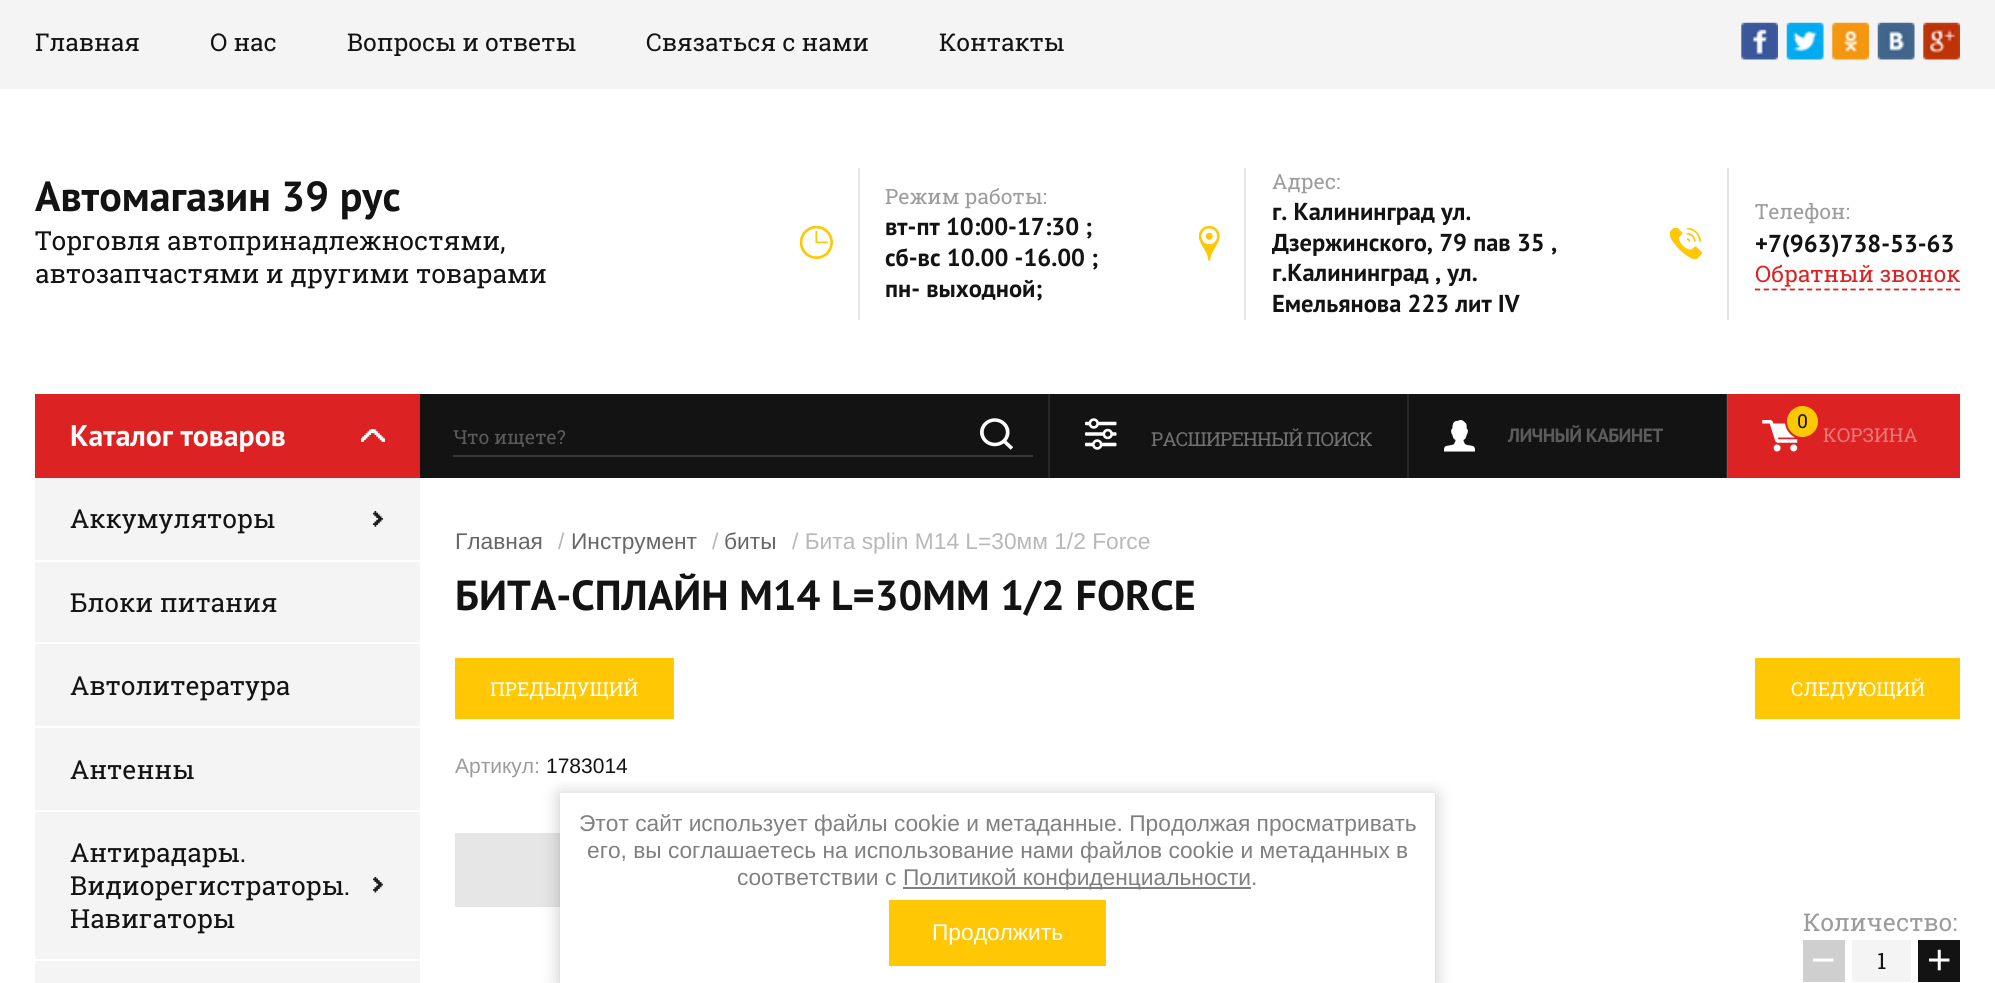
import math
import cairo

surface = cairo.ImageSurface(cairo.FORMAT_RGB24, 1995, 983)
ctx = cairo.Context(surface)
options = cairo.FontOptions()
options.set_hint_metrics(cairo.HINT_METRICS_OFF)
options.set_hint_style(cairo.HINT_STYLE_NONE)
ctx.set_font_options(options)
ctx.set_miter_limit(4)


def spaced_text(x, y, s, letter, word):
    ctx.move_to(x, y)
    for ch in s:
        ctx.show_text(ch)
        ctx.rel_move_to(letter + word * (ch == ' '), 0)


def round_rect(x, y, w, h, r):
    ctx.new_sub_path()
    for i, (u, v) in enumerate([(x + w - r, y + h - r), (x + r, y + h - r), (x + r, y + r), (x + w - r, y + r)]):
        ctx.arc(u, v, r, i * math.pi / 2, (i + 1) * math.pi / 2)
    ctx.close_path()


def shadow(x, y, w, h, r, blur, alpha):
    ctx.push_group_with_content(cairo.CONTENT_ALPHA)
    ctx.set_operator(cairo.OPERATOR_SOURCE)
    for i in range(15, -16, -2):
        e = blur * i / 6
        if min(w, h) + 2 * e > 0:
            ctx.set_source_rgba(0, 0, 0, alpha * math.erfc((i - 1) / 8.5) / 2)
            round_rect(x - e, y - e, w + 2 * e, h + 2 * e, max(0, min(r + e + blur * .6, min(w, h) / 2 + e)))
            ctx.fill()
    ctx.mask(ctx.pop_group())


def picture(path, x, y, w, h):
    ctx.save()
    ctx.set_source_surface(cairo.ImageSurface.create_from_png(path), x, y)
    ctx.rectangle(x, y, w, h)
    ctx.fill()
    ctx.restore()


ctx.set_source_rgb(1, 1, 1)
ctx.paint()
ctx.set_source_rgb(0.957, 0.957, 0.957)
ctx.rectangle(0, 0, 1995, 89)
ctx.fill()
ctx.select_font_face("Roboto Slab")
ctx.set_font_size(24.5)
ctx.set_source_rgb(0.078, 0.078, 0.078)
ctx.move_to(35, 51)
ctx.show_text("Главная")
ctx.move_to(210, 51)
ctx.show_text("О нас")
ctx.move_to(347, 51)
ctx.show_text("Вопросы и ответы")
ctx.move_to(646, 51)
ctx.show_text("Связаться с нами")
ctx.move_to(939, 51)
ctx.show_text("Контакты")
picture("img1.png", 1741, 22, 37, 38)
picture("img2.png", 1786, 22, 38, 38)
picture("img3.png", 1832, 22, 37, 38)
picture("img4.png", 1877, 22, 38, 38)
picture("img5.png", 1923, 22, 37, 38)
ctx.select_font_face("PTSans", cairo.FONT_SLANT_NORMAL, cairo.FONT_WEIGHT_BOLD)
ctx.set_font_size(42)
ctx.move_to(35, 211)
ctx.show_text("Автомагазин 39 рус")
ctx.select_font_face("Roboto Slab")
ctx.set_font_size(26.25)
ctx.move_to(35, 250)
ctx.show_text("Торговля автопринадлежностями,")
ctx.move_to(35, 283)
ctx.show_text("автозапчастями и другими товарами")
ctx.set_source_rgb(0.906, 0.906, 0.906)
ctx.rectangle(858, 168, 2, 152)
ctx.fill()
ctx.set_font_size(21)
ctx.set_source_rgb(0.612, 0.612, 0.612)
ctx.move_to(885, 204)
ctx.show_text("Режим работы:")
picture("img6.png", 800, 226, 33, 33)
ctx.select_font_face("PTSans", cairo.FONT_SLANT_NORMAL, cairo.FONT_WEIGHT_BOLD)
ctx.set_font_size(24.5)
ctx.set_source_rgb(0.078, 0.078, 0.078)
ctx.move_to(885, 235)
ctx.show_text("вт-пт 10:00-17:30 ;")
ctx.move_to(885, 266)
ctx.show_text("сб-вс 10.00 -16.00 ;")
ctx.move_to(885, 297)
ctx.show_text("пн- выходной;")
ctx.set_source_rgb(0.906, 0.906, 0.906)
ctx.rectangle(1244, 168, 2, 152)
ctx.fill()
ctx.select_font_face("Roboto Slab")
ctx.set_font_size(21)
ctx.set_source_rgb(0.612, 0.612, 0.612)
ctx.move_to(1272, 189)
ctx.show_text("Адрес:")
picture("img7.png", 1199, 226, 21, 35)
ctx.select_font_face("PTSans", cairo.FONT_SLANT_NORMAL, cairo.FONT_WEIGHT_BOLD)
ctx.set_font_size(24.5)
ctx.set_source_rgb(0.078, 0.078, 0.078)
ctx.move_to(1272, 220)
ctx.show_text("г. Калининград ул.")
ctx.move_to(1272, 251)
ctx.show_text("Дзержинского, 79 пав 35 ,")
ctx.move_to(1272, 281)
ctx.show_text("г.Калининград , ул.")
ctx.move_to(1272, 312)
ctx.show_text("Емельянова 223 лит IV")
ctx.set_source_rgb(0.906, 0.906, 0.906)
ctx.rectangle(1727, 168, 2, 152)
ctx.fill()
ctx.select_font_face("Roboto Slab")
ctx.set_font_size(21)
ctx.set_source_rgb(0.612, 0.612, 0.612)
ctx.move_to(1755, 219)
ctx.show_text("Телефон:")
picture("img8.png", 1670, 228, 32, 32)
ctx.select_font_face("PTSans", cairo.FONT_SLANT_NORMAL, cairo.FONT_WEIGHT_BOLD)
ctx.set_font_size(24.5)
ctx.set_source_rgb(0.078, 0.078, 0.078)
ctx.move_to(1755, 252)
ctx.show_text("+7(963)738-53-63")
ctx.new_path()
ctx.move_to(1755, 289.5)
ctx.line_to(1960, 289.5)
ctx.set_source_rgb(0.863, 0.133, 0.133)
ctx.set_line_width(1.8)
ctx.set_dash([5.25, 3.43])
ctx.stroke()
ctx.select_font_face("Roboto Slab")
ctx.set_font_size(22.75)
ctx.move_to(1755, 282)
ctx.show_text("Обратный звонок")
ctx.set_source_rgb(0.078, 0.078, 0.078)
ctx.rectangle(420, 394, 1307, 84)
ctx.fill()
ctx.set_source_rgb(0.863, 0.133, 0.133)
ctx.rectangle(35, 394, 385, 84)
ctx.fill()
ctx.select_font_face("PTSans", cairo.FONT_SLANT_NORMAL, cairo.FONT_WEIGHT_BOLD)
ctx.set_font_size(29.75)
ctx.set_source_rgb(1, 1, 1)
ctx.move_to(70, 446)
ctx.show_text("Каталог товаров")
picture("img9.png", 361, 429, 24, 13)
ctx.set_source_rgb(0.216, 0.216, 0.216)
ctx.rectangle(453, 455, 580, 2)
ctx.fill()
ctx.select_font_face("Roboto Slab")
ctx.set_font_size(19.25)
ctx.set_source_rgb(0.357, 0.357, 0.357)
ctx.move_to(453, 444)
ctx.show_text("Что ищете?")
picture("img10.png", 980, 418, 33, 32)
picture("img11.png", 1085, 418, 32, 32)
ctx.set_source_rgb(0.153, 0.153, 0.153)
ctx.rectangle(1048, 394, 2, 84)
ctx.fill()
ctx.set_source_rgb(0.447, 0.447, 0.447)
spaced_text(1151, 446, "РАСШИРЕННЫЙ ПОИСК", -0.75, 0)
picture("img12.png", 1444, 420, 31, 32)
ctx.set_source_rgb(0.863, 0.133, 0.133)
ctx.rectangle(1727, 394, 233, 84)
ctx.fill()
ctx.set_source_rgba(1, 1, 1, 0.08)
ctx.rectangle(1726, 394, 2, 84)
ctx.fill()
ctx.set_source_rgb(0.153, 0.153, 0.153)
ctx.rectangle(1407, 394, 2, 84)
ctx.fill()
ctx.select_font_face("PTSans", cairo.FONT_SLANT_NORMAL, cairo.FONT_WEIGHT_BOLD)
ctx.set_source_rgb(0.357, 0.357, 0.357)
spaced_text(1508, 442, "ЛИЧНЫЙ КАБИНЕТ", -0.6, 0)
picture("img13.png", 1762, 420, 36, 32)
ctx.set_source_rgb(1, 0.78, 0.016)
ctx.arc(1802.5, 421.5, 16.5, 0, 2 * math.pi)
ctx.fill_preserve()
ctx.set_source_rgb(0.863, 0.133, 0.133)
ctx.set_line_width(2)
ctx.set_dash([])
ctx.stroke()
ctx.select_font_face("Roboto Slab")
ctx.set_source_rgb(0.078, 0.078, 0.078)
ctx.move_to(1797, 428)
ctx.show_text("0")
ctx.set_source_rgb(0.918, 0.478, 0.478)
ctx.move_to(1823, 442)
ctx.show_text("КОРЗИНА")
ctx.set_source_rgb(0.957, 0.957, 0.957)
ctx.rectangle(35, 478, 385, 82)
ctx.fill()
ctx.set_font_size(26.25)
ctx.set_source_rgb(0.078, 0.078, 0.078)
ctx.move_to(70, 528)
ctx.show_text("Аккумуляторы")
picture("img14.png", 373, 511, 10, 16)
ctx.set_source_rgb(0.957, 0.957, 0.957)
ctx.rectangle(35, 562, 385, 80)
ctx.fill()
ctx.set_source_rgb(0.078, 0.078, 0.078)
ctx.move_to(70, 612)
ctx.show_text("Блоки питания")
ctx.set_source_rgb(0.957, 0.957, 0.957)
ctx.rectangle(35, 644, 385, 82)
ctx.fill()
ctx.set_source_rgb(0.078, 0.078, 0.078)
ctx.move_to(70, 695)
ctx.show_text("Автолитература")
ctx.set_source_rgb(0.957, 0.957, 0.957)
ctx.rectangle(35, 728, 385, 82)
ctx.fill()
ctx.set_source_rgb(0.078, 0.078, 0.078)
ctx.move_to(70, 779)
ctx.show_text("Антенны")
ctx.set_source_rgb(0.957, 0.957, 0.957)
ctx.rectangle(35, 812, 385, 147)
ctx.fill()
ctx.set_source_rgb(0.078, 0.078, 0.078)
ctx.move_to(70, 862)
ctx.show_text("Антирадары.")
ctx.move_to(70, 895)
ctx.show_text("Видиорегистраторы.")
picture("img15.png", 373, 877, 10, 16)
ctx.move_to(70, 928)
ctx.show_text("Навигаторы")
ctx.set_source_rgb(0.957, 0.957, 0.957)
ctx.rectangle(35, 961, 385, 22)
ctx.fill()
ctx.select_font_face("Liberation Sans")
ctx.set_font_size(22.75)
ctx.set_source_rgb(0.404, 0.404, 0.404)
ctx.move_to(455, 549)
ctx.show_text("Главная")
ctx.set_source_rgb(0.722, 0.722, 0.722)
ctx.move_to(558, 549)
ctx.show_text("/")
ctx.set_source_rgb(0.404, 0.404, 0.404)
ctx.move_to(571, 549)
ctx.show_text("Инструмент")
ctx.set_source_rgb(0.722, 0.722, 0.722)
ctx.move_to(712, 549)
ctx.show_text("/")
ctx.set_source_rgb(0.404, 0.404, 0.404)
ctx.move_to(724, 549)
ctx.show_text("биты")
ctx.set_source_rgb(0.722, 0.722, 0.722)
ctx.move_to(792, 549)
ctx.show_text("/ Бита splin М14 L=30мм 1/2 Force")
ctx.select_font_face("PTSans", cairo.FONT_SLANT_NORMAL, cairo.FONT_WEIGHT_BOLD)
ctx.set_font_size(42)
ctx.set_source_rgb(0.078, 0.078, 0.078)
ctx.move_to(455, 610)
ctx.show_text("БИТА-СПЛАЙН М14 L=30ММ 1/2 FORCE")
ctx.set_source_rgb(1, 0.78, 0.016)
ctx.rectangle(455, 658, 219, 61)
ctx.fill()
ctx.select_font_face("Roboto Slab")
ctx.set_font_size(19.25)
ctx.set_source_rgb(1, 1, 1)
ctx.move_to(490, 696)
ctx.show_text("ПРЕДЫДУЩИЙ")
ctx.set_source_rgb(1, 0.78, 0.016)
ctx.rectangle(1755, 658, 205, 61)
ctx.fill()
ctx.set_source_rgb(1, 1, 1)
ctx.move_to(1791, 696)
ctx.show_text("СЛЕДУЮЩИЙ")
ctx.select_font_face("Liberation Sans")
ctx.set_font_size(21)
ctx.set_source_rgb(0.612, 0.612, 0.612)
ctx.move_to(455, 773)
ctx.show_text("Артикул:")
ctx.set_source_rgb(0.078, 0.078, 0.078)
ctx.move_to(546, 773)
ctx.show_text("1783014")
ctx.set_source_rgb(0.902, 0.902, 0.902)
ctx.rectangle(457, 835, 103, 70)
ctx.fill()
ctx.rectangle(456, 834, 637, 72)
ctx.set_source_rgb(0.898, 0.898, 0.898)
ctx.stroke()
ctx.select_font_face("Roboto Slab")
ctx.set_font_size(24.5)
ctx.set_source_rgb(0.612, 0.612, 0.612)
ctx.move_to(1803, 931)
ctx.show_text("Количество:")
ctx.set_source_rgb(0.812, 0.812, 0.812)
ctx.rectangle(1803, 940, 42, 42)
ctx.fill()
ctx.select_font_face("Liberation Sans")
ctx.set_font_size(42)
ctx.set_source_rgb(1, 1, 1)
ctx.move_to(1811, 974)
ctx.show_text("−")
ctx.set_source_rgb(0.957, 0.957, 0.957)
ctx.rectangle(1852, 940, 59, 42)
ctx.fill()
ctx.select_font_face("Roboto Slab")
ctx.set_font_size(22.75)
ctx.set_source_rgb(0.078, 0.078, 0.078)
ctx.move_to(1877, 969)
ctx.show_text("1")
ctx.rectangle(1918, 940, 42, 42)
ctx.fill()
ctx.select_font_face("Liberation Sans")
ctx.set_font_size(42)
ctx.set_source_rgb(1, 1, 1)
ctx.move_to(1927, 974)
ctx.show_text("+")
ctx.set_source_rgb(0, 0, 0)
shadow(560, 795, 875, 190, 0, 9, 0.23)
ctx.set_source_rgb(1, 1, 1)
ctx.rectangle(560, 793, 875, 190)
ctx.fill()
ctx.set_font_size(22.75)
ctx.set_source_rgb(0.502, 0.502, 0.502)
ctx.move_to(579, 831)
ctx.show_text("Этот сайт использует файлы cookie и метаданные. Продолжая просматривать")
ctx.move_to(587, 858)
ctx.show_text("его, вы соглашаетесь на использование нами файлов cookie и метаданных в")
ctx.move_to(737, 885)
ctx.show_text("соответствии с")
ctx.rectangle(903, 887, 348, 2)
ctx.fill()
ctx.move_to(903, 885)
ctx.show_text("Политикой конфиденциальности.")
ctx.set_source_rgb(1, 0.78, 0.016)
ctx.rectangle(889, 900, 217, 66)
ctx.fill()
ctx.set_source_rgb(1, 1, 1)
ctx.move_to(932, 940)
ctx.show_text("Продолжить")
surface.write_to_png("page.png")
